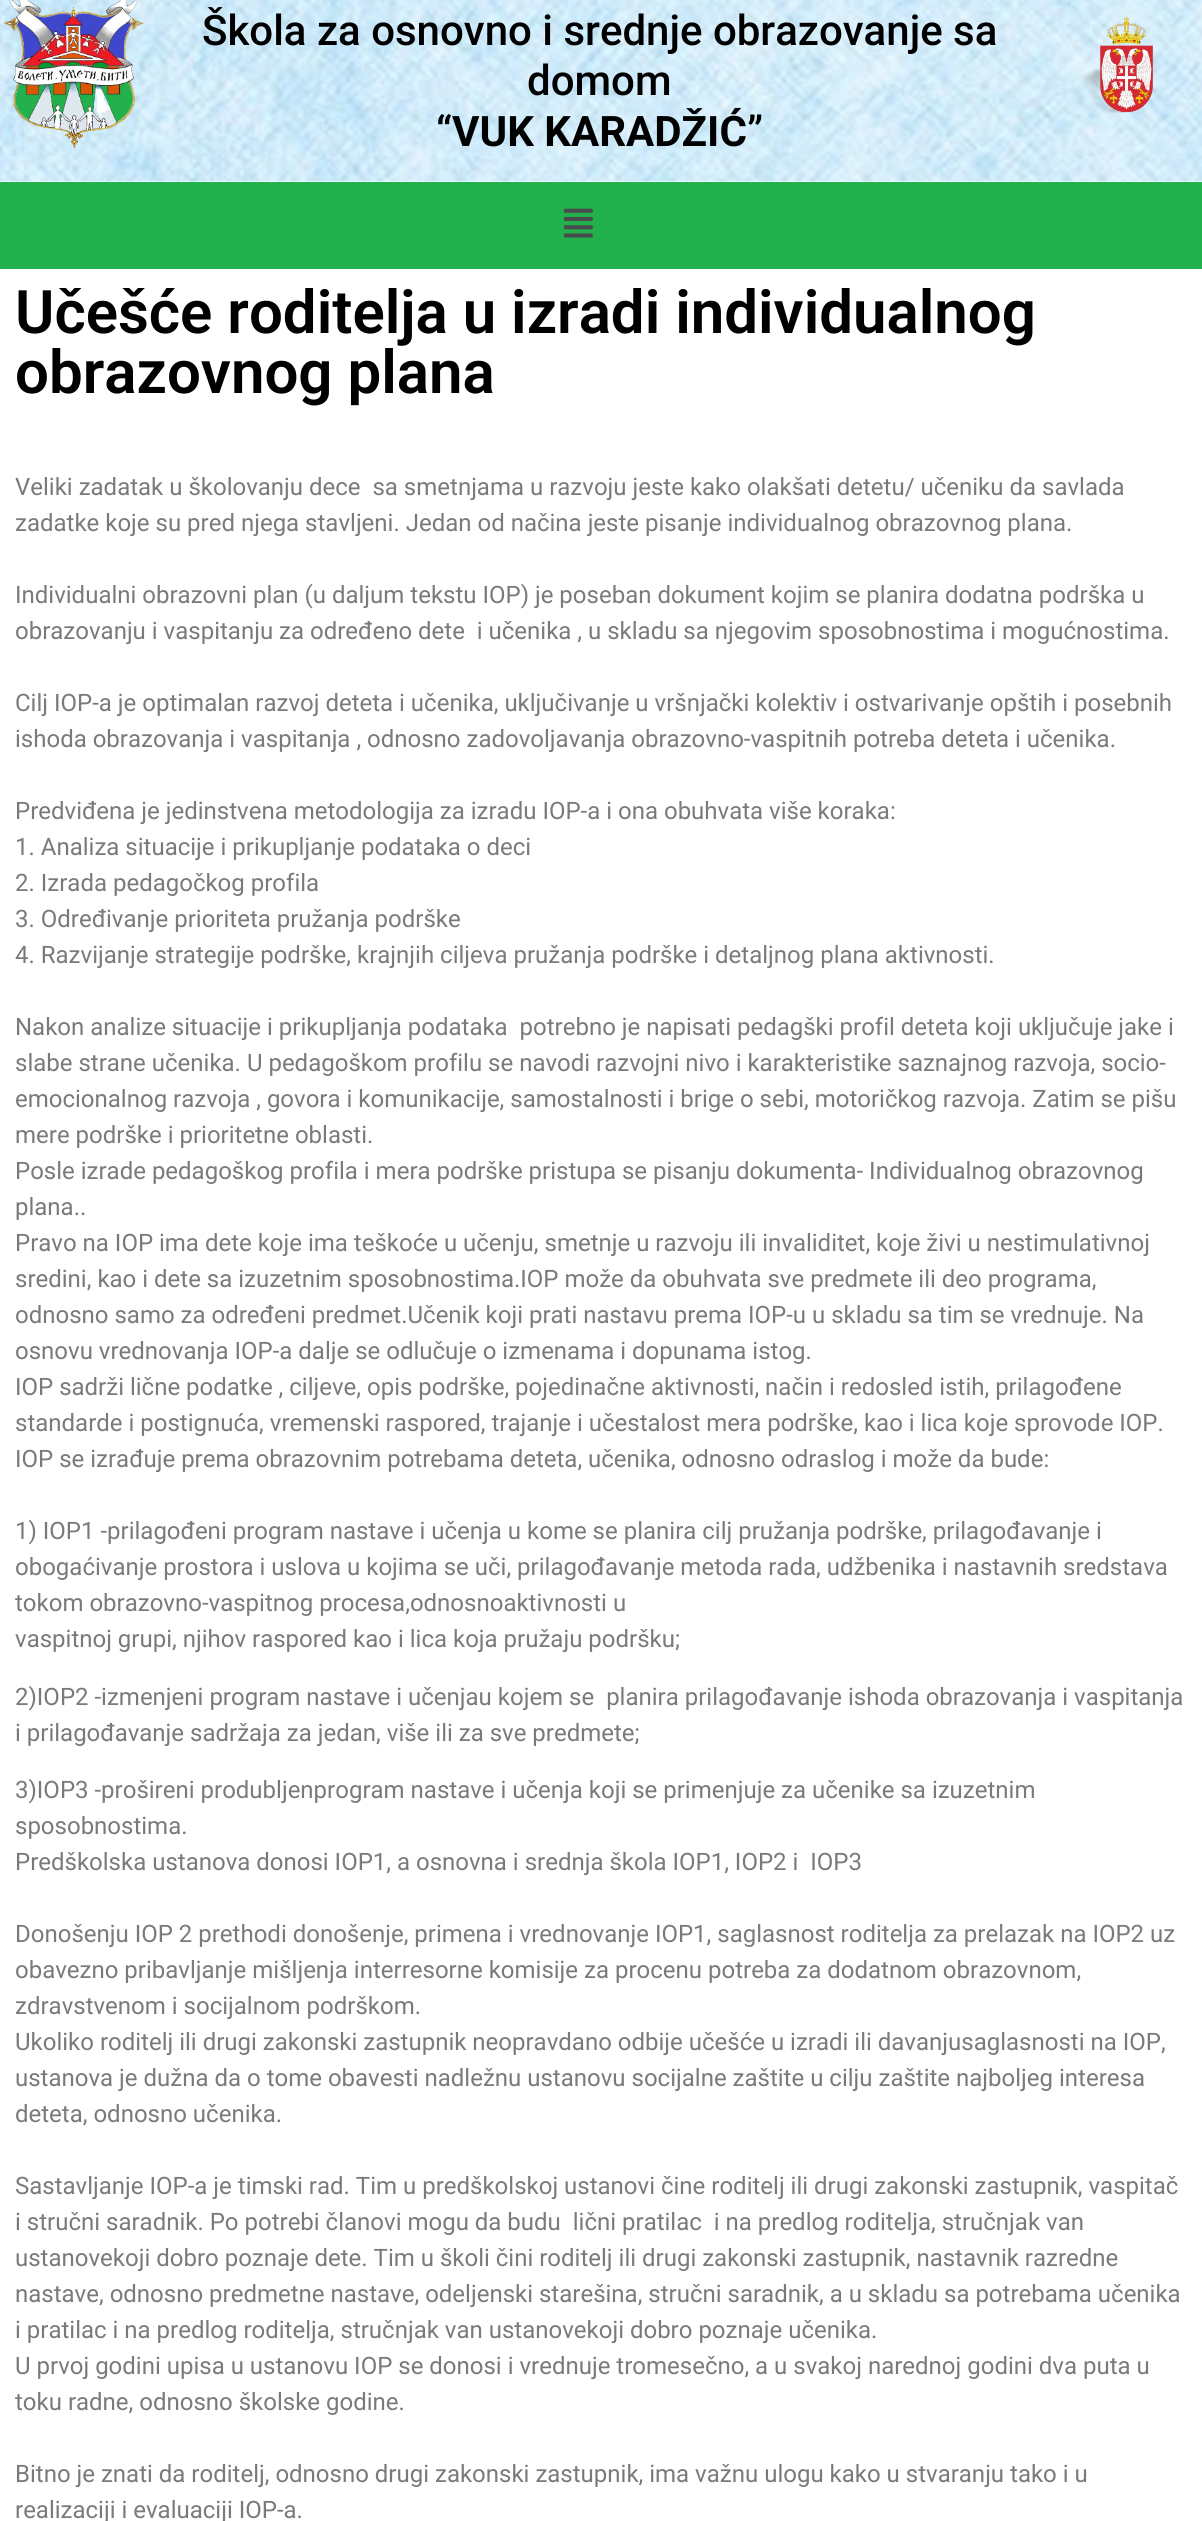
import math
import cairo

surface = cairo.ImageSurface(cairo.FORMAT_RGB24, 1202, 2521)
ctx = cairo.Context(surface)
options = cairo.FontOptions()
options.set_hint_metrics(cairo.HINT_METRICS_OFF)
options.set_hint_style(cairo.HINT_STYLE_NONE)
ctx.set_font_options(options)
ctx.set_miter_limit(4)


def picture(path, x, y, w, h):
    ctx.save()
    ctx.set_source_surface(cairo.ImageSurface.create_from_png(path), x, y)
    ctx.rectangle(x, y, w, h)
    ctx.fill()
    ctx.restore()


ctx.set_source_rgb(1, 1, 1)
ctx.paint()
picture("img1.png", 0, 0, 1202, 182)
picture("img2.png", 4, 0, 140, 148)
ctx.select_font_face("Roboto Medium")
ctx.set_font_size(42)
ctx.set_source_rgb(0, 0, 0)
ctx.move_to(202, 45)
ctx.show_text("Škola za osnovno i srednje obrazovanje sa")
ctx.move_to(527, 95)
ctx.show_text("domom")
ctx.move_to(436, 146)
ctx.show_text("“")
ctx.select_font_face("Roboto", cairo.FONT_SLANT_NORMAL, cairo.FONT_WEIGHT_BOLD)
ctx.move_to(452, 146)
ctx.show_text("VUK KARADŽIĆ")
ctx.select_font_face("Roboto Medium")
ctx.move_to(747, 146)
ctx.show_text("”")
picture("img3.png", 1081, 17, 72, 96)
ctx.set_source_rgb(0.137, 0.694, 0.302)
ctx.rectangle(0, 182, 1202, 87)
ctx.fill()
picture("img4.png", 564, 208, 29, 30)
ctx.select_font_face("Roboto SemiBold")
ctx.set_font_size(60)
ctx.set_source_rgb(0, 0, 0)
ctx.move_to(15, 333)
ctx.show_text("Učešće roditelja u izradi individualnog")
ctx.move_to(15, 393)
ctx.show_text("obrazovnog plana")
ctx.select_font_face("Roboto")
ctx.set_font_size(24)
ctx.set_source_rgb(0.478, 0.478, 0.478)
ctx.move_to(15, 495)
ctx.show_text("Veliki zadatak u školovanju dece  sa smetnjama u razvoju jeste kako olakšati detetu/ učeniku da savlada")
ctx.move_to(15, 531)
ctx.show_text("zadatke koje su pred njega stavljeni. Jedan od načina jeste pisanje individualnog obrazovnog plana.")
ctx.move_to(15, 603)
ctx.show_text("Individualni obrazovni plan (u daljum tekstu IOP) je poseban dokument kojim se planira dodatna podrška u")
ctx.move_to(15, 639)
ctx.show_text("obrazovanju i vaspitanju za određeno dete  i učenika , u skladu sa njegovim sposobnostima i mogućnostima.")
ctx.move_to(15, 711)
ctx.show_text("Cilj IOP-a je optimalan razvoj deteta i učenika, uključivanje u vršnjački kolektiv i ostvarivanje opštih i posebnih")
ctx.move_to(15, 747)
ctx.show_text("ishoda obrazovanja i vaspitanja , odnosno zadovoljavanja obrazovno-vaspitnih potreba deteta i učenika.")
ctx.move_to(15, 819)
ctx.show_text("Predviđena je jedinstvena metodologija za izradu IOP-a i ona obuhvata više koraka:")
ctx.move_to(15, 855)
ctx.show_text("1. Analiza situacije i prikupljanje podataka o deci")
ctx.move_to(15, 891)
ctx.show_text("2. Izrada pedagočkog profila")
ctx.move_to(15, 927)
ctx.show_text("3. Određivanje prioriteta pružanja podrške")
ctx.move_to(15, 963)
ctx.show_text("4. Razvijanje strategije podrške, krajnjih ciljeva pružanja podrške i detaljnog plana aktivnosti.")
ctx.move_to(15, 1035)
ctx.show_text("Nakon analize situacije i prikupljanja podataka  potrebno je napisati pedagški profil deteta koji uključuje jake i")
ctx.move_to(15, 1071)
ctx.show_text("slabe strane učenika. U pedagoškom profilu se navodi razvojni nivo i karakteristike saznajnog razvoja, socio-")
ctx.move_to(15, 1107)
ctx.show_text("emocionalnog razvoja , govora i komunikacije, samostalnosti i brige o sebi, motoričkog razvoja. Zatim se pišu")
ctx.move_to(15, 1143)
ctx.show_text("mere podrške i prioritetne oblasti.")
ctx.move_to(15, 1179)
ctx.show_text("Posle izrade pedagoškog profila i mera podrške pristupa se pisanju dokumenta- Individualnog obrazovnog")
ctx.move_to(15, 1215)
ctx.show_text("plana..")
ctx.move_to(15, 1251)
ctx.show_text("Pravo na IOP ima dete koje ima teškoće u učenju, smetnje u razvoju ili invaliditet, koje živi u nestimulativnoj")
ctx.move_to(15, 1287)
ctx.show_text("sredini, kao i dete sa izuzetnim sposobnostima.IOP može da obuhvata sve predmete ili deo programa,")
ctx.move_to(15, 1323)
ctx.show_text("odnosno samo za određeni predmet.Učenik koji prati nastavu prema IOP-u u skladu sa tim se vrednuje. Na")
ctx.move_to(15, 1359)
ctx.show_text("osnovu vrednovanja IOP-a dalje se odlučuje o izmenama i dopunama istog.")
ctx.move_to(15, 1395)
ctx.show_text("IOP sadrži lične podatke , ciljeve, opis podrške, pojedinačne aktivnosti, način i redosled istih, prilagođene")
ctx.move_to(15, 1431)
ctx.show_text("standarde i postignuća, vremenski raspored, trajanje i učestalost mera podrške, kao i lica koje sprovode IOP.")
ctx.move_to(15, 1467)
ctx.show_text("IOP se izrađuje prema obrazovnim potrebama deteta, učenika, odnosno odraslog i može da bude:")
ctx.move_to(15, 1539)
ctx.show_text("1) IOP1 -prilagođeni program nastave i učenja u kome se planira cilj pružanja podrške, prilagođavanje i")
ctx.move_to(15, 1575)
ctx.show_text("obogaćivanje prostora i uslova u kojima se uči, prilagođavanje metoda rada, udžbenika i nastavnih sredstava")
ctx.move_to(15, 1611)
ctx.show_text("tokom obrazovno-vaspitnog procesa,odnosnoaktivnosti u")
ctx.move_to(15, 1647)
ctx.show_text("vaspitnoj grupi, njihov raspored kao i lica koja pružaju podršku;")
ctx.move_to(15, 1705)
ctx.show_text("2)IOP2 -izmenjeni program nastave i učenjau kojem se  planira prilagođavanje ishoda obrazovanja i vaspitanja")
ctx.move_to(15, 1741)
ctx.show_text("i prilagođavanje sadržaja za jedan, više ili za sve predmete;")
ctx.move_to(15, 1798)
ctx.show_text("3)IOP3 -prošireni produbljenprogram nastave i učenja koji se primenjuje za učenike sa izuzetnim")
ctx.move_to(15, 1834)
ctx.show_text("sposobnostima.")
ctx.move_to(15, 1870)
ctx.show_text("Predškolska ustanova donosi IOP1, a osnovna i srednja škola IOP1, IOP2 i  IOP3")
ctx.move_to(15, 1942)
ctx.show_text("Donošenju IOP 2 prethodi donošenje, primena i vrednovanje IOP1, saglasnost roditelja za prelazak na IOP2 uz")
ctx.move_to(15, 1978)
ctx.show_text("obavezno pribavljanje mišljenja interresorne komisije za procenu potreba za dodatnom obrazovnom,")
ctx.move_to(15, 2014)
ctx.show_text("zdravstvenom i socijalnom podrškom.")
ctx.move_to(15, 2050)
ctx.show_text("Ukoliko roditelj ili drugi zakonski zastupnik neopravdano odbije učešće u izradi ili davanjusaglasnosti na IOP,")
ctx.move_to(15, 2086)
ctx.show_text("ustanova je dužna da o tome obavesti nadležnu ustanovu socijalne zaštite u cilju zaštite najboljeg interesa")
ctx.move_to(15, 2122)
ctx.show_text("deteta, odnosno učenika.")
ctx.move_to(15, 2194)
ctx.show_text("Sastavljanje IOP-a je timski rad. Tim u predškolskoj ustanovi čine roditelj ili drugi zakonski zastupnik, vaspitač")
ctx.move_to(15, 2230)
ctx.show_text("i stručni saradnik. Po potrebi članovi mogu da budu  lični pratilac  i na predlog roditelja, stručnjak van")
ctx.move_to(15, 2266)
ctx.show_text("ustanovekoji dobro poznaje dete. Tim u školi čini roditelj ili drugi zakonski zastupnik, nastavnik razredne")
ctx.move_to(15, 2302)
ctx.show_text("nastave, odnosno predmetne nastave, odeljenski starešina, stručni saradnik, a u skladu sa potrebama učenika")
ctx.move_to(15, 2338)
ctx.show_text("i pratilac i na predlog roditelja, stručnjak van ustanovekoji dobro poznaje učenika.")
ctx.move_to(15, 2374)
ctx.show_text("U prvoj godini upisa u ustanovu IOP se donosi i vrednuje tromesečno, a u svakoj narednoj godini dva puta u")
ctx.move_to(15, 2410)
ctx.show_text("toku radne, odnosno školske godine.")
ctx.move_to(15, 2482)
ctx.show_text("Bitno je znati da roditelj, odnosno drugi zakonski zastupnik, ima važnu ulogu kako u stvaranju tako i u")
ctx.move_to(15, 2518)
ctx.show_text("realizaciji i evaluaciji IOP-a.")
surface.write_to_png("page.png")
